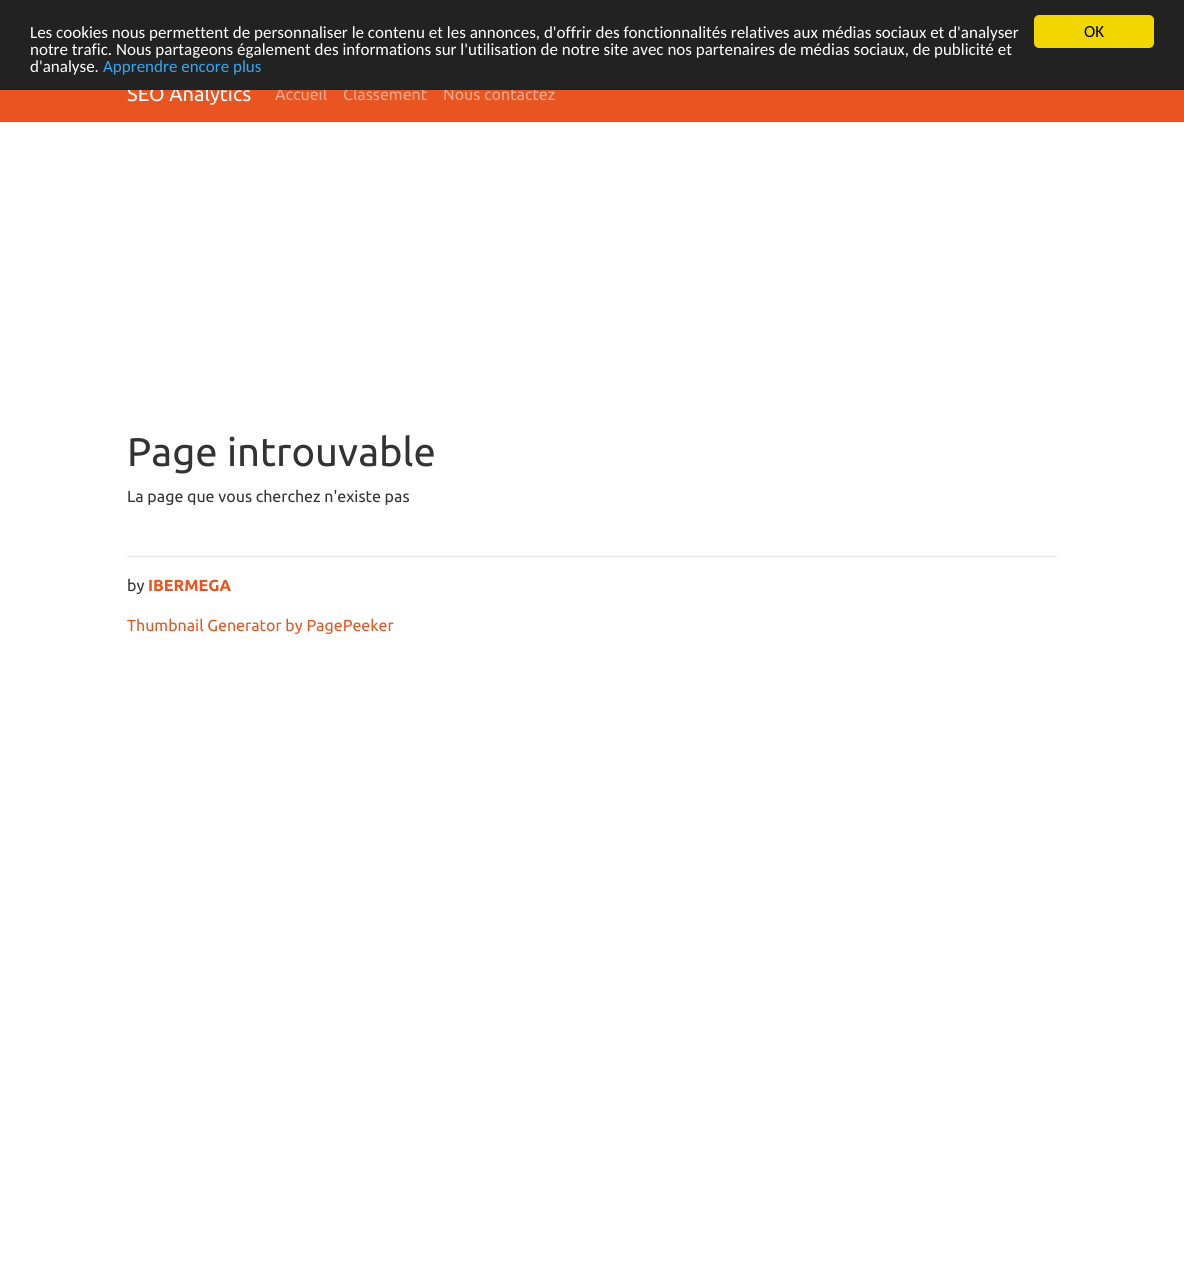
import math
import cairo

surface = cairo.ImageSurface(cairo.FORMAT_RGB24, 1184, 1287)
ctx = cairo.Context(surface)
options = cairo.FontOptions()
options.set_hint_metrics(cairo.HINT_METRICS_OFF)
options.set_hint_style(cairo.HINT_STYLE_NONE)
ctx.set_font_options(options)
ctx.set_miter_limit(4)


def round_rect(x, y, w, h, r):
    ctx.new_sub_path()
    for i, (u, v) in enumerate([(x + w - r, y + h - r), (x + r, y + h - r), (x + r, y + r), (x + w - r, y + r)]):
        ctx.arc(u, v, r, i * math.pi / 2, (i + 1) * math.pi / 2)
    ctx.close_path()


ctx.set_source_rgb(1, 1, 1)
ctx.paint()
ctx.set_source_rgb(0.914, 0.329, 0.125)
ctx.rectangle(0, 90, 1184, 32)
ctx.fill()
ctx.select_font_face("Ubuntu")
ctx.set_font_size(20)
ctx.set_source_rgb(1, 1, 1)
ctx.move_to(127, 101)
ctx.show_text("SEO Analytics")
ctx.set_font_size(16)
ctx.set_source_rgb(0.957, 0.667, 0.565)
ctx.move_to(275, 100)
ctx.show_text("Accueil")
ctx.move_to(343, 100)
ctx.show_text("Classement")
ctx.move_to(443, 100)
ctx.show_text("Nous contactez")
ctx.set_source_rgb(0.133, 0.133, 0.133)
ctx.rectangle(0, 0, 1184, 90)
ctx.fill()
ctx.select_font_face("Carlito")
ctx.set_font_size(17)
ctx.set_source_rgb(1, 1, 1)
ctx.move_to(30, 38)
ctx.show_text("Les cookies nous permettent de personnaliser le contenu et les annonces, d'offrir des fonctionnalités relatives aux médias sociaux et d'analyser")
ctx.move_to(30, 55)
ctx.show_text("notre trafic. Nous partageons également des informations sur l'utilisation de notre site avec nos partenaires de médias sociaux, de publicité et")
ctx.move_to(30, 72)
ctx.show_text("d'analyse.")
ctx.set_source_rgb(0.192, 0.659, 0.941)
ctx.move_to(103, 72)
ctx.show_text("Apprendre encore plus")
ctx.set_source_rgb(0.945, 0.839, 0)
round_rect(1034, 15, 120, 33, 5)
ctx.fill()
ctx.set_source_rgb(0, 0, 0)
ctx.move_to(1084, 37)
ctx.show_text("OK")
ctx.select_font_face("Ubuntu")
ctx.set_font_size(40)
ctx.set_source_rgb(0.2, 0.2, 0.2)
ctx.move_to(127, 466)
ctx.show_text("Page introuvable")
ctx.set_font_size(16)
ctx.move_to(127, 502)
ctx.show_text("La page que vous cherchez n'existe pas")
ctx.set_source_rgb(0.902, 0.902, 0.902)
ctx.rectangle(127, 556, 930, 1)
ctx.fill()
ctx.set_source_rgb(0.2, 0.2, 0.2)
ctx.move_to(127, 591)
ctx.show_text("by")
ctx.select_font_face("Ubuntu", cairo.FONT_SLANT_NORMAL, cairo.FONT_WEIGHT_BOLD)
ctx.set_source_rgb(0.914, 0.329, 0.125)
ctx.move_to(148, 591)
ctx.show_text("IBERMEGA")
ctx.select_font_face("Ubuntu")
ctx.move_to(127, 631)
ctx.show_text("Thumbnail Generator by PagePeeker")
surface.write_to_png("page.png")
